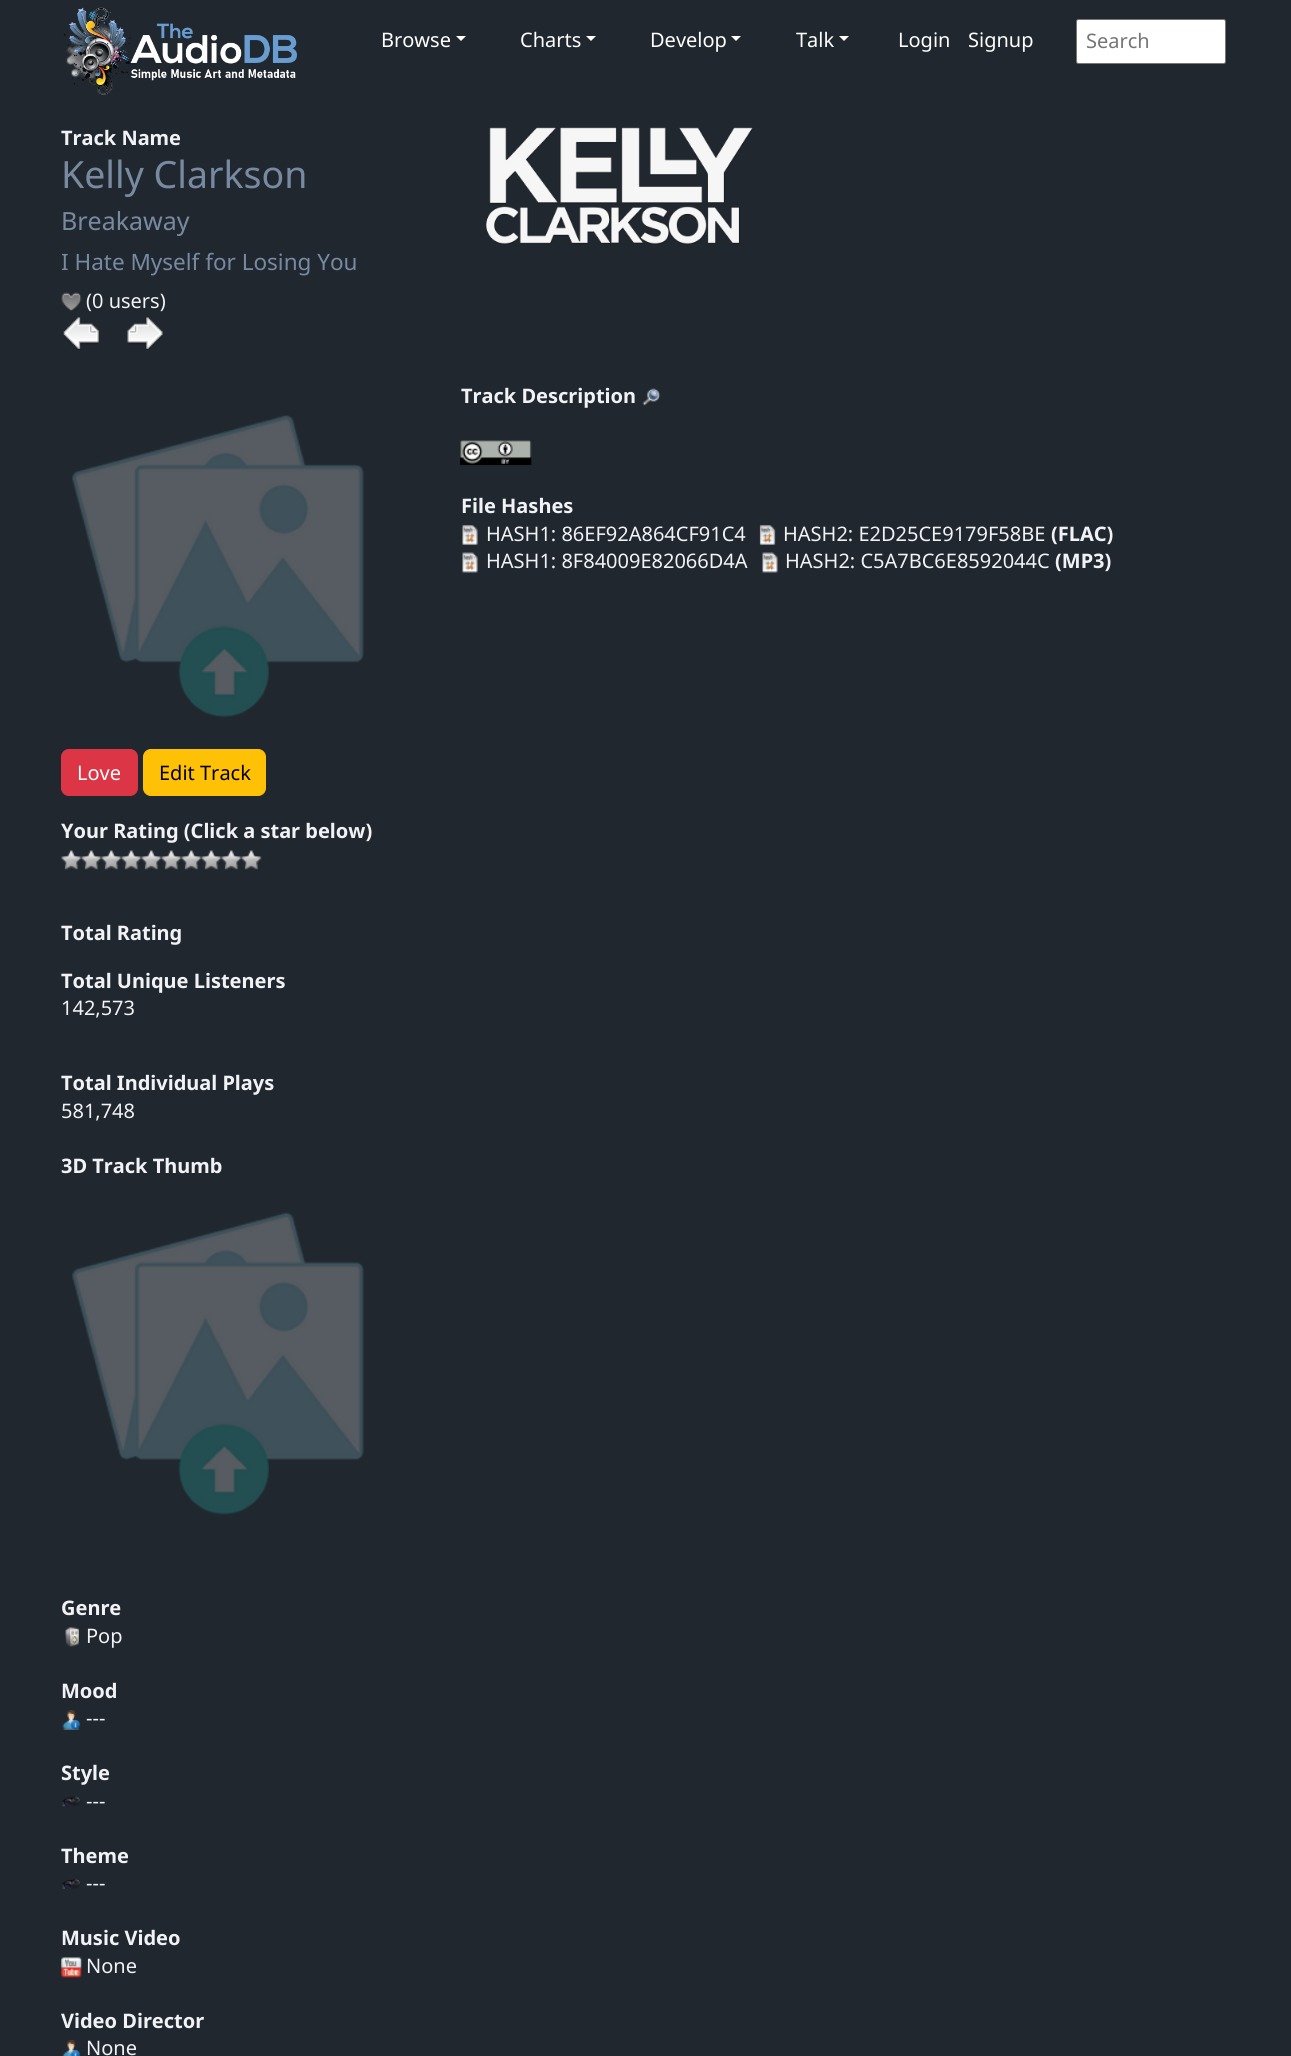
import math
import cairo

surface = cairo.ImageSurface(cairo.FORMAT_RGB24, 1291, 2056)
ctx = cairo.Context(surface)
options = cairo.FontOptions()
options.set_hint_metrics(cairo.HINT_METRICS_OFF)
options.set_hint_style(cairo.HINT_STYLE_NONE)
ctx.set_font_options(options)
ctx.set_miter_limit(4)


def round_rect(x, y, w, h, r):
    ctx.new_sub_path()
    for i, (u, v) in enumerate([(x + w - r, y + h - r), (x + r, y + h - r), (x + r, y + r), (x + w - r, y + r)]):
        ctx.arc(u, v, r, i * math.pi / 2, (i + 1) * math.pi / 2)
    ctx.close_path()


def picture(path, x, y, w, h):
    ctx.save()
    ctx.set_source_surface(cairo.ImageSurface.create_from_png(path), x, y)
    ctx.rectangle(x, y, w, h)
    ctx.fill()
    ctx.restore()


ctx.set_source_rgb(0.125, 0.153, 0.184)
ctx.paint()
picture("img1.png", 63, 7, 234, 88)
ctx.select_font_face("Noto Sans")
ctx.set_font_size(20)
ctx.set_source_rgb(1, 1, 1)
ctx.move_to(381, 47)
ctx.show_text("Browse")
ctx.new_path()
ctx.move_to(456, 36)
ctx.line_to(466, 36)
ctx.line_to(461, 41)
ctx.close_path()
ctx.fill()
ctx.move_to(520, 47)
ctx.show_text("Charts")
ctx.new_path()
ctx.move_to(586, 36)
ctx.line_to(596, 36)
ctx.line_to(591, 41)
ctx.close_path()
ctx.fill()
ctx.move_to(650, 47)
ctx.show_text("Develop")
ctx.new_path()
ctx.move_to(731, 36)
ctx.line_to(741, 36)
ctx.line_to(736, 41)
ctx.close_path()
ctx.fill()
ctx.move_to(796, 47)
ctx.show_text("Talk")
ctx.new_path()
ctx.move_to(839, 36)
ctx.line_to(849, 36)
ctx.line_to(844, 41)
ctx.close_path()
ctx.fill()
ctx.move_to(898, 47)
ctx.show_text("Login")
ctx.move_to(968, 47)
ctx.show_text("Signup")
round_rect(1076.5, 19.5, 149, 44, 2)
ctx.fill_preserve()
ctx.set_source_rgb(0.463, 0.463, 0.463)
ctx.set_line_width(1)
ctx.stroke()
ctx.set_source_rgb(0.459, 0.459, 0.459)
ctx.move_to(1086, 48)
ctx.show_text("Search")
ctx.select_font_face("Noto Sans", cairo.FONT_SLANT_NORMAL, cairo.FONT_WEIGHT_BOLD)
ctx.set_source_rgb(0.941, 0.949, 0.961)
ctx.move_to(61, 145)
ctx.show_text("Track Name")
ctx.select_font_face("Noto Sans")
ctx.set_font_size(37.5)
ctx.set_source_rgb(0.471, 0.541, 0.631)
ctx.move_to(61, 188)
ctx.show_text("Kelly Clarkson")
ctx.set_font_size(25)
ctx.move_to(61, 230)
ctx.show_text("Breakaway")
ctx.set_font_size(22.5)
ctx.move_to(61, 270)
ctx.show_text("I Hate Myself for Losing You")
picture("img2.png", 61, 292, 21, 19)
ctx.set_font_size(20)
ctx.set_source_rgb(0.941, 0.949, 0.961)
ctx.move_to(86, 308)
ctx.show_text("(0 users)")
picture("img3.png", 63, 317, 36, 33)
picture("img4.png", 127, 317, 36, 33)
picture("img5.png", 486, 127, 267, 118)
ctx.select_font_face("Noto Sans", cairo.FONT_SLANT_NORMAL, cairo.FONT_WEIGHT_BOLD)
ctx.move_to(461, 403)
ctx.show_text("Track Description")
picture("img6.png", 642, 388, 19, 18)
picture("img7.png", 460, 440, 72, 25)
ctx.move_to(461, 513)
ctx.show_text("File Hashes")
picture("img8.png", 462, 525, 16, 20)
ctx.select_font_face("Noto Sans")
ctx.move_to(486, 541)
ctx.show_text("HASH1: 86EF92A864CF91C4")
picture("img9.png", 759, 525, 17, 20)
ctx.move_to(783, 541)
ctx.show_text("HASH2: E2D25CE9179F58BE")
ctx.select_font_face("Noto Sans", cairo.FONT_SLANT_NORMAL, cairo.FONT_WEIGHT_BOLD)
ctx.move_to(1051, 541)
ctx.show_text("(FLAC)")
picture("img10.png", 462, 552, 16, 21)
ctx.select_font_face("Noto Sans")
ctx.move_to(486, 568)
ctx.show_text("HASH1: 8F84009E82066D4A")
picture("img11.png", 762, 552, 16, 21)
ctx.move_to(785, 568)
ctx.show_text("HASH2: C5A7BC6E8592044C")
ctx.select_font_face("Noto Sans", cairo.FONT_SLANT_NORMAL, cairo.FONT_WEIGHT_BOLD)
ctx.move_to(1055, 568)
ctx.show_text("(MP3)")
picture("img12.png", 72, 415, 292, 303)
ctx.set_source_rgb(0.863, 0.208, 0.271)
round_rect(61.5, 749.5, 76, 46, 7.5)
ctx.fill_preserve()
ctx.stroke()
ctx.select_font_face("Noto Sans")
ctx.set_source_rgb(1, 1, 1)
ctx.move_to(77, 780)
ctx.show_text("Love")
ctx.set_source_rgb(1, 0.757, 0.027)
round_rect(143.5, 749.5, 122, 46, 7.5)
ctx.fill_preserve()
ctx.stroke()
ctx.set_source_rgb(0, 0, 0)
ctx.move_to(159, 780)
ctx.show_text("Edit Track")
ctx.select_font_face("Noto Sans", cairo.FONT_SLANT_NORMAL, cairo.FONT_WEIGHT_BOLD)
ctx.set_source_rgb(0.941, 0.949, 0.961)
ctx.move_to(61, 838)
ctx.show_text("Your Rating (Click a star below)")
picture("img13.png", 61, 850, 21, 20)
picture("img14.png", 81, 850, 21, 20)
picture("img14.png", 101, 850, 21, 20)
picture("img14.png", 121, 850, 21, 20)
picture("img14.png", 141, 850, 21, 20)
picture("img14.png", 161, 850, 21, 20)
picture("img14.png", 181, 850, 21, 20)
picture("img14.png", 201, 850, 21, 20)
picture("img14.png", 221, 850, 21, 20)
picture("img15.png", 241, 850, 21, 20)
ctx.move_to(61, 940)
ctx.show_text("Total Rating")
ctx.move_to(61, 988)
ctx.show_text("Total Unique Listeners")
ctx.select_font_face("Noto Sans")
ctx.move_to(61, 1015)
ctx.show_text("142,573")
ctx.select_font_face("Noto Sans", cairo.FONT_SLANT_NORMAL, cairo.FONT_WEIGHT_BOLD)
ctx.move_to(61, 1090)
ctx.show_text("Total Individual Plays")
ctx.select_font_face("Noto Sans")
ctx.move_to(61, 1118)
ctx.show_text("581,748")
ctx.select_font_face("Noto Sans", cairo.FONT_SLANT_NORMAL, cairo.FONT_WEIGHT_BOLD)
ctx.move_to(61, 1173)
ctx.show_text("3D Track Thumb")
picture("img16.png", 72, 1212, 292, 303)
ctx.move_to(61, 1615)
ctx.show_text("Genre")
picture("img17.png", 65, 1627, 14, 20)
ctx.select_font_face("Noto Sans")
ctx.move_to(86, 1643)
ctx.show_text("Pop")
ctx.select_font_face("Noto Sans", cairo.FONT_SLANT_NORMAL, cairo.FONT_WEIGHT_BOLD)
ctx.move_to(61, 1698)
ctx.show_text("Mood")
picture("img18.png", 62, 1710, 19, 20)
ctx.select_font_face("Noto Sans")
ctx.move_to(86, 1725)
ctx.show_text("---")
ctx.select_font_face("Noto Sans", cairo.FONT_SLANT_NORMAL, cairo.FONT_WEIGHT_BOLD)
ctx.move_to(61, 1780)
ctx.show_text("Style")
picture("img19.png", 62, 1796, 19, 11)
ctx.select_font_face("Noto Sans")
ctx.move_to(86, 1808)
ctx.show_text("---")
ctx.select_font_face("Noto Sans", cairo.FONT_SLANT_NORMAL, cairo.FONT_WEIGHT_BOLD)
ctx.move_to(61, 1863)
ctx.show_text("Theme")
picture("img20.png", 62, 1878, 19, 12)
ctx.select_font_face("Noto Sans")
ctx.move_to(86, 1890)
ctx.show_text("---")
ctx.select_font_face("Noto Sans", cairo.FONT_SLANT_NORMAL, cairo.FONT_WEIGHT_BOLD)
ctx.move_to(61, 1945)
ctx.show_text("Music Video")
picture("img21.png", 61, 1957, 21, 21)
ctx.select_font_face("Noto Sans")
ctx.move_to(86, 1973)
ctx.show_text("None")
ctx.select_font_face("Noto Sans", cairo.FONT_SLANT_NORMAL, cairo.FONT_WEIGHT_BOLD)
ctx.move_to(61, 2028)
ctx.show_text("Video Director")
picture("img22.png", 62, 2040, 19, 16)
ctx.select_font_face("Noto Sans")
ctx.move_to(86, 2055)
ctx.show_text("None")
surface.write_to_png("page.png")
